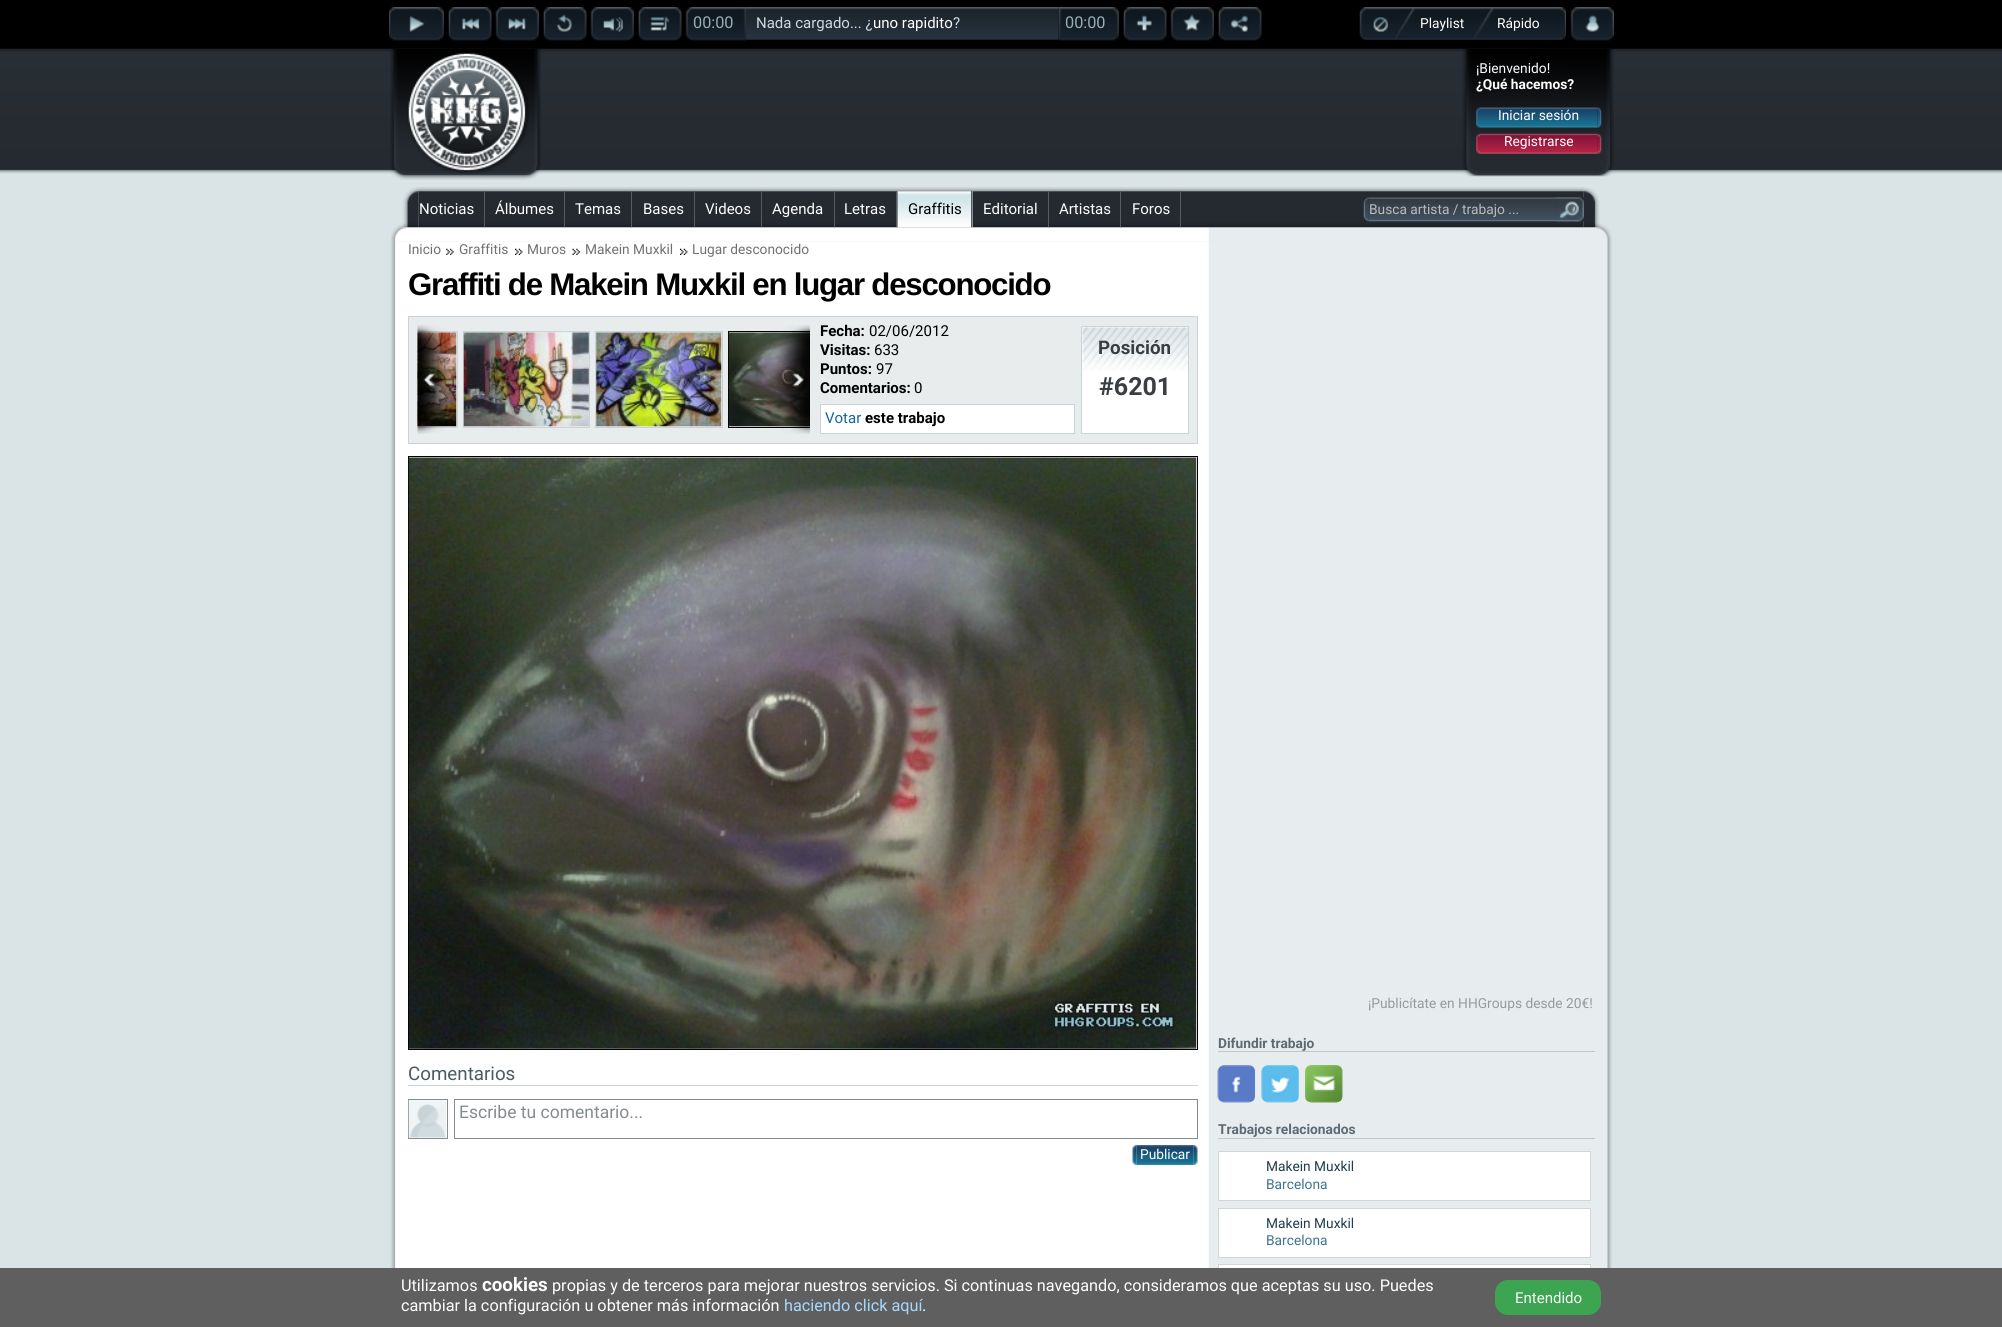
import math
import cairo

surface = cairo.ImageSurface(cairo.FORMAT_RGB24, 2002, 1327)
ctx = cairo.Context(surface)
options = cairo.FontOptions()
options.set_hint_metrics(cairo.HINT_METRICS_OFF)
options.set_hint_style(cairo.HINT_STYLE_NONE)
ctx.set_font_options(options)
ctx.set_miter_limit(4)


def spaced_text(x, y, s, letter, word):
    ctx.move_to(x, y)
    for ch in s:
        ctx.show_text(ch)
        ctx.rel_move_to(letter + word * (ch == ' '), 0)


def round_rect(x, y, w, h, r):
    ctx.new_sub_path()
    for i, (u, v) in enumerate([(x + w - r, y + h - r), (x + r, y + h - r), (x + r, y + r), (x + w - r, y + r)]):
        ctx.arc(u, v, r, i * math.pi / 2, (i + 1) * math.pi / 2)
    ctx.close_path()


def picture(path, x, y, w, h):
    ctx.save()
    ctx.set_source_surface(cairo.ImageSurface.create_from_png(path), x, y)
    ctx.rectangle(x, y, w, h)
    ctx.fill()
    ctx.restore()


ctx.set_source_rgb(0.855, 0.894, 0.902)
ctx.paint()
picture("img1.png", 0, 48, 2002, 126)
picture("img18.png", 390, 48, 151, 132)
picture("img20.png", 1462, 48, 152, 129)
picture("img2.png", 0, 0, 2002, 52)
picture("img3.png", 389, 7, 55, 34)
picture("img4.png", 448, 7, 44, 34)
picture("img5.png", 495, 7, 44, 34)
picture("img6.png", 543, 7, 44, 34)
picture("img7.png", 590, 7, 44, 34)
picture("img8.png", 638, 7, 44, 34)
picture("img9.png", 685, 7, 62, 34)
ctx.select_font_face("Roboto")
ctx.set_font_size(16.25)
ctx.set_source_rgb(0.592, 0.675, 0.71)
ctx.move_to(693, 28)
ctx.show_text("00:00")
picture("img11.png", 1058, 7, 61, 34)
picture("img10.png", 746, 7, 314, 33)
ctx.set_font_size(15)
ctx.set_source_rgb(0.796, 0.859, 0.878)
ctx.move_to(756, 28)
ctx.show_text("Nada cargado... ¿")
ctx.set_source_rgb(1, 1, 1)
ctx.move_to(873, 28)
ctx.show_text("uno rapidito")
ctx.set_source_rgb(0.796, 0.859, 0.878)
ctx.move_to(953, 28)
ctx.show_text("?")
ctx.set_font_size(16.25)
ctx.set_source_rgb(0.592, 0.675, 0.71)
ctx.move_to(1065, 28)
ctx.show_text("00:00")
picture("img12.png", 1123, 7, 44, 34)
picture("img13.png", 1170, 7, 44, 34)
picture("img14.png", 1218, 7, 44, 34)
picture("img15.png", 1359, 7, 207, 33)
picture("img16.png", 1373, 17, 15, 15)
ctx.set_font_size(13.75)
ctx.set_source_rgb(1, 1, 1)
ctx.move_to(1420, 28)
ctx.show_text("Playlist")
ctx.move_to(1497, 28)
ctx.show_text("Rápido")
picture("img17.png", 1570, 7, 44, 34)
picture("img19.png", 407, 53, 122, 121)
ctx.move_to(1476, 73)
ctx.show_text("¡Bienvenido!")
ctx.select_font_face("Roboto", cairo.FONT_SLANT_NORMAL, cairo.FONT_WEIGHT_BOLD)
ctx.move_to(1476, 89)
ctx.show_text("¿Qué hacemos?")
picture("img21.png", 1476, 107, 4, 21)
picture("img22.png", 1480, 107, 118, 21)
ctx.select_font_face("Roboto")
ctx.move_to(1498, 120)
ctx.show_text("Iniciar sesión")
picture("img23.png", 1597, 107, 5, 21)
picture("img24.png", 1476, 133, 4, 21)
picture("img25.png", 1480, 133, 118, 21)
ctx.move_to(1504, 146)
ctx.show_text("Registrarse")
picture("img26.png", 1597, 133, 5, 21)
picture("img27.png", 397, 187, 22, 41)
picture("img28.png", 418, 187, 1166, 41)
ctx.set_font_size(15)
ctx.move_to(419, 214)
ctx.show_text("Noticias")
ctx.set_source_rgb(0.341, 0.353, 0.388)
ctx.rectangle(484, 191, 1, 37)
ctx.fill()
ctx.set_source_rgb(1, 1, 1)
ctx.move_to(495, 214)
ctx.show_text("Álbumes")
ctx.set_source_rgb(0.341, 0.353, 0.388)
ctx.rectangle(564, 191, 1, 37)
ctx.fill()
ctx.set_source_rgb(1, 1, 1)
ctx.move_to(575, 214)
ctx.show_text("Temas")
ctx.set_source_rgb(0.341, 0.353, 0.388)
ctx.rectangle(631, 191, 1, 37)
ctx.fill()
ctx.set_source_rgb(1, 1, 1)
ctx.move_to(643, 214)
ctx.show_text("Bases")
ctx.set_source_rgb(0.341, 0.353, 0.388)
ctx.rectangle(694, 191, 1, 37)
ctx.fill()
ctx.set_source_rgb(1, 1, 1)
ctx.move_to(705, 214)
ctx.show_text("Videos")
ctx.set_source_rgb(0.341, 0.353, 0.388)
ctx.rectangle(761, 191, 1, 37)
ctx.fill()
ctx.set_source_rgb(1, 1, 1)
ctx.move_to(772, 214)
ctx.show_text("Agenda")
ctx.set_source_rgb(0.341, 0.353, 0.388)
ctx.rectangle(834, 191, 1, 37)
ctx.fill()
ctx.set_source_rgb(1, 1, 1)
ctx.move_to(844, 214)
ctx.show_text("Letras")
ctx.set_source_rgb(0.341, 0.353, 0.388)
ctx.rectangle(896, 191, 1, 37)
ctx.fill()
picture("img29.png", 897, 191, 76, 37)
ctx.set_source_rgb(0, 0, 0)
ctx.move_to(908, 214)
ctx.show_text("Graffitis")
ctx.set_source_rgb(0.341, 0.353, 0.388)
ctx.rectangle(971, 191, 1, 37)
ctx.fill()
ctx.set_source_rgb(1, 1, 1)
ctx.move_to(983, 214)
ctx.show_text("Editorial")
ctx.set_source_rgb(0.341, 0.353, 0.388)
ctx.rectangle(1048, 191, 1, 37)
ctx.fill()
ctx.set_source_rgb(1, 1, 1)
ctx.move_to(1059, 214)
ctx.show_text("Artistas")
ctx.set_source_rgb(0.341, 0.353, 0.388)
ctx.rectangle(1120, 191, 1, 37)
ctx.fill()
ctx.set_source_rgb(1, 1, 1)
ctx.move_to(1132, 214)
ctx.show_text("Foros")
ctx.set_source_rgb(0.341, 0.353, 0.388)
ctx.rectangle(1180, 191, 1, 37)
ctx.fill()
picture("img30.png", 1363, 197, 6, 25)
picture("img31.png", 1368, 197, 189, 25)
ctx.set_font_size(13.75)
ctx.set_source_rgb(0.722, 0.737, 0.745)
ctx.move_to(1369, 214)
ctx.show_text("Busca artista / trabajo ...")
picture("img34.png", 1583, 187, 23, 41)
picture("img32.png", 1556, 197, 28, 25)
picture("img33.png", 1556, 197, 28, 25)
picture("img35.png", 390, 227, 1222, 15)
picture("img36.png", 390, 241, 1222, 1027)
ctx.set_source_rgb(0.443, 0.443, 0.443)
ctx.move_to(408, 254)
ctx.show_text("Inicio")
picture("img37.png", 446, 248, 8, 7)
ctx.move_to(459, 254)
ctx.show_text("Graffitis")
picture("img38.png", 515, 248, 8, 7)
ctx.move_to(527, 254)
ctx.show_text("Muros")
picture("img39.png", 572, 248, 8, 7)
ctx.move_to(585, 254)
ctx.show_text("Makein Muxkil")
picture("img40.png", 680, 248, 8, 7)
ctx.move_to(692, 254)
ctx.show_text("Lugar desconocido")
ctx.select_font_face("Liberation Sans", cairo.FONT_SLANT_NORMAL, cairo.FONT_WEIGHT_BOLD)
ctx.set_font_size(31.25)
ctx.set_source_rgb(0, 0, 0)
spaced_text(408, 295, "Graffiti de Makein Muxkil en lugar desconocido", -1.25, 0)
ctx.set_source_rgb(0.91, 0.925, 0.929)
ctx.rectangle(408.5, 316.5, 789, 127)
ctx.fill_preserve()
ctx.set_source_rgb(0.792, 0.827, 0.847)
ctx.set_line_width(1)
ctx.stroke()
ctx.save()
ctx.rectangle(418, 331, 392, 100)
ctx.clip()
ctx.rectangle(330.5, 331.5, 127, 96)
ctx.stroke()
ctx.restore()
picture("img43.png", 417, 332, 40, 95)
picture("img41.png", 417, 325, 35, 109)
ctx.set_source_rgb(1, 1, 1)
ctx.rectangle(820.5, 404.5, 254, 29)
ctx.fill_preserve()
ctx.set_source_rgb(0.792, 0.827, 0.847)
ctx.stroke()
ctx.select_font_face("Roboto")
ctx.set_font_size(15)
ctx.set_source_rgb(0.071, 0.4, 0.631)
ctx.move_to(825, 423)
ctx.show_text("Votar")
ctx.save()
ctx.rectangle(418, 331, 392, 100)
ctx.clip()
ctx.rectangle(728.5, 331.5, 126, 96)
ctx.set_source_rgb(0, 0, 0)
ctx.stroke()
ctx.restore()
picture("img46.png", 728, 332, 82, 95)
picture("img42.png", 777, 325, 33, 109)
ctx.rectangle(463.5, 331.5, 126, 96)
ctx.set_source_rgb(0.792, 0.827, 0.847)
ctx.stroke()
picture("img44.png", 463, 332, 126, 95)
ctx.rectangle(595.5, 331.5, 127, 96)
ctx.stroke()
picture("img45.png", 596, 332, 126, 95)
ctx.select_font_face("Roboto", cairo.FONT_SLANT_NORMAL, cairo.FONT_WEIGHT_BOLD)
ctx.set_source_rgb(0, 0, 0)
ctx.move_to(820, 336)
ctx.show_text("Fecha:")
ctx.select_font_face("Roboto")
ctx.move_to(869, 336)
ctx.show_text("02/06/2012")
ctx.select_font_face("Roboto", cairo.FONT_SLANT_NORMAL, cairo.FONT_WEIGHT_BOLD)
ctx.move_to(820, 355)
ctx.show_text("Visitas:")
ctx.select_font_face("Roboto")
ctx.move_to(874, 355)
ctx.show_text("633")
ctx.select_font_face("Roboto", cairo.FONT_SLANT_NORMAL, cairo.FONT_WEIGHT_BOLD)
ctx.move_to(820, 374)
ctx.show_text("Puntos:")
ctx.select_font_face("Roboto")
ctx.move_to(876, 374)
ctx.show_text("97")
ctx.select_font_face("Roboto", cairo.FONT_SLANT_NORMAL, cairo.FONT_WEIGHT_BOLD)
ctx.move_to(820, 393)
ctx.show_text("Comentarios:")
ctx.select_font_face("Roboto")
ctx.move_to(914, 393)
ctx.show_text("0")
ctx.select_font_face("Roboto", cairo.FONT_SLANT_NORMAL, cairo.FONT_WEIGHT_BOLD)
ctx.move_to(865, 423)
ctx.show_text("este trabajo")
ctx.set_source_rgb(1, 1, 1)
ctx.rectangle(1082, 327, 106, 106)
ctx.fill()
picture("img47.png", 1082, 327, 106, 44)
ctx.rectangle(1081.5, 326.5, 107, 107)
ctx.set_source_rgb(0.792, 0.827, 0.847)
ctx.stroke()
ctx.set_font_size(18.75)
ctx.set_source_rgb(0.227, 0.243, 0.259)
ctx.move_to(1098, 354)
ctx.show_text("Posición")
ctx.set_font_size(25)
ctx.move_to(1099, 395)
ctx.show_text("#6201")
ctx.rectangle(408.5, 456.5, 789, 593)
ctx.set_source_rgb(0, 0, 0)
ctx.stroke()
picture("img48.png", 408, 457, 789, 592)
ctx.set_source_rgb(0.788, 0.827, 0.851)
ctx.rectangle(408, 1085, 790, 1)
ctx.fill()
ctx.select_font_face("Roboto")
ctx.set_font_size(18.75)
ctx.set_source_rgb(0.306, 0.353, 0.38)
ctx.move_to(408, 1080)
ctx.show_text("Comentarios")
ctx.rectangle(408.5, 1099.5, 39, 39)
ctx.set_source_rgb(0.522, 0.549, 0.565)
ctx.stroke()
picture("img49.png", 408, 1100, 39, 38)
ctx.rectangle(454.5, 1099.5, 743, 39)
ctx.stroke()
ctx.set_font_size(17.5)
ctx.move_to(459, 1118)
ctx.show_text("Escribe tu comentario...")
picture("img50.png", 1132, 1145, 5, 20)
picture("img51.png", 1136, 1145, 58, 20)
ctx.set_font_size(13.75)
ctx.set_source_rgb(1, 1, 1)
ctx.move_to(1140, 1159)
ctx.show_text("Publicar")
picture("img52.png", 1193, 1145, 5, 20)
ctx.set_source_rgb(0.588, 0.604, 0.612)
ctx.move_to(1368, 1008)
ctx.show_text("¡Publicítate en HHGroups desde 20€!")
ctx.set_source_rgb(0.761, 0.78, 0.792)
ctx.rectangle(1218, 1051, 377, 1)
ctx.fill()
ctx.select_font_face("Roboto", cairo.FONT_SLANT_NORMAL, cairo.FONT_WEIGHT_BOLD)
ctx.set_source_rgb(0.361, 0.416, 0.451)
ctx.move_to(1218, 1048)
ctx.show_text("Difundir trabajo")
picture("img53.png", 1217, 1065, 38, 38)
picture("img54.png", 1261, 1065, 38, 38)
picture("img55.png", 1304, 1065, 39, 38)
ctx.set_source_rgb(0.761, 0.78, 0.792)
ctx.rectangle(1218, 1138, 377, 1)
ctx.fill()
ctx.set_source_rgb(0.361, 0.416, 0.451)
ctx.move_to(1218, 1134)
ctx.show_text("Trabajos relacionados")
ctx.set_source_rgb(1, 1, 1)
ctx.rectangle(1218.5, 1151.5, 372, 49)
ctx.fill_preserve()
ctx.set_source_rgb(0.831, 0.831, 0.831)
ctx.stroke()
ctx.select_font_face("Roboto")
ctx.set_source_rgb(0.122, 0.235, 0.302)
ctx.move_to(1266, 1171)
ctx.show_text("Makein Muxkil")
ctx.set_source_rgb(0.247, 0.447, 0.565)
ctx.move_to(1266, 1189)
ctx.show_text("Barcelona")
ctx.set_source_rgb(1, 1, 1)
ctx.rectangle(1218.5, 1208.5, 372, 49)
ctx.fill_preserve()
ctx.set_source_rgb(0.831, 0.831, 0.831)
ctx.stroke()
ctx.set_source_rgb(0.122, 0.235, 0.302)
ctx.move_to(1266, 1228)
ctx.show_text("Makein Muxkil")
ctx.set_source_rgb(0.247, 0.447, 0.565)
ctx.move_to(1266, 1245)
ctx.show_text("Barcelona")
ctx.set_source_rgb(1, 1, 1)
ctx.rectangle(1219, 1265, 371, 3)
ctx.fill()
ctx.rectangle(1218.5, 1264.5, 372, 49)
ctx.set_source_rgb(0.831, 0.831, 0.831)
ctx.stroke()
ctx.set_source_rgb(0.373, 0.373, 0.373)
ctx.rectangle(0, 1268, 2002, 59)
ctx.fill()
ctx.set_font_size(16.25)
ctx.set_source_rgb(1, 1, 1)
ctx.move_to(401, 1291)
ctx.show_text("Utilizamos")
ctx.select_font_face("Roboto", cairo.FONT_SLANT_NORMAL, cairo.FONT_WEIGHT_BOLD)
ctx.set_font_size(18.75)
ctx.move_to(482, 1291)
ctx.show_text("cookies")
ctx.select_font_face("Roboto")
ctx.set_font_size(16.25)
ctx.move_to(552, 1291)
ctx.show_text("propias y de terceros para mejorar nuestros servicios. Si continuas navegando, consideramos que aceptas su uso. Puedes")
ctx.move_to(401, 1311)
ctx.show_text("cambiar la configuración u obtener más información")
ctx.set_source_rgb(0.647, 0.855, 1)
ctx.move_to(784, 1311)
ctx.show_text("haciendo click aquí")
ctx.set_source_rgb(1, 1, 1)
ctx.move_to(922, 1311)
ctx.show_text(".")
ctx.set_source_rgb(0.239, 0.647, 0.322)
round_rect(1495, 1280, 106, 35, 13)
ctx.fill()
ctx.set_font_size(15)
ctx.set_source_rgb(0.969, 0.969, 0.969)
ctx.move_to(1515, 1303)
ctx.show_text("Entendido")
surface.write_to_png("page.png")
